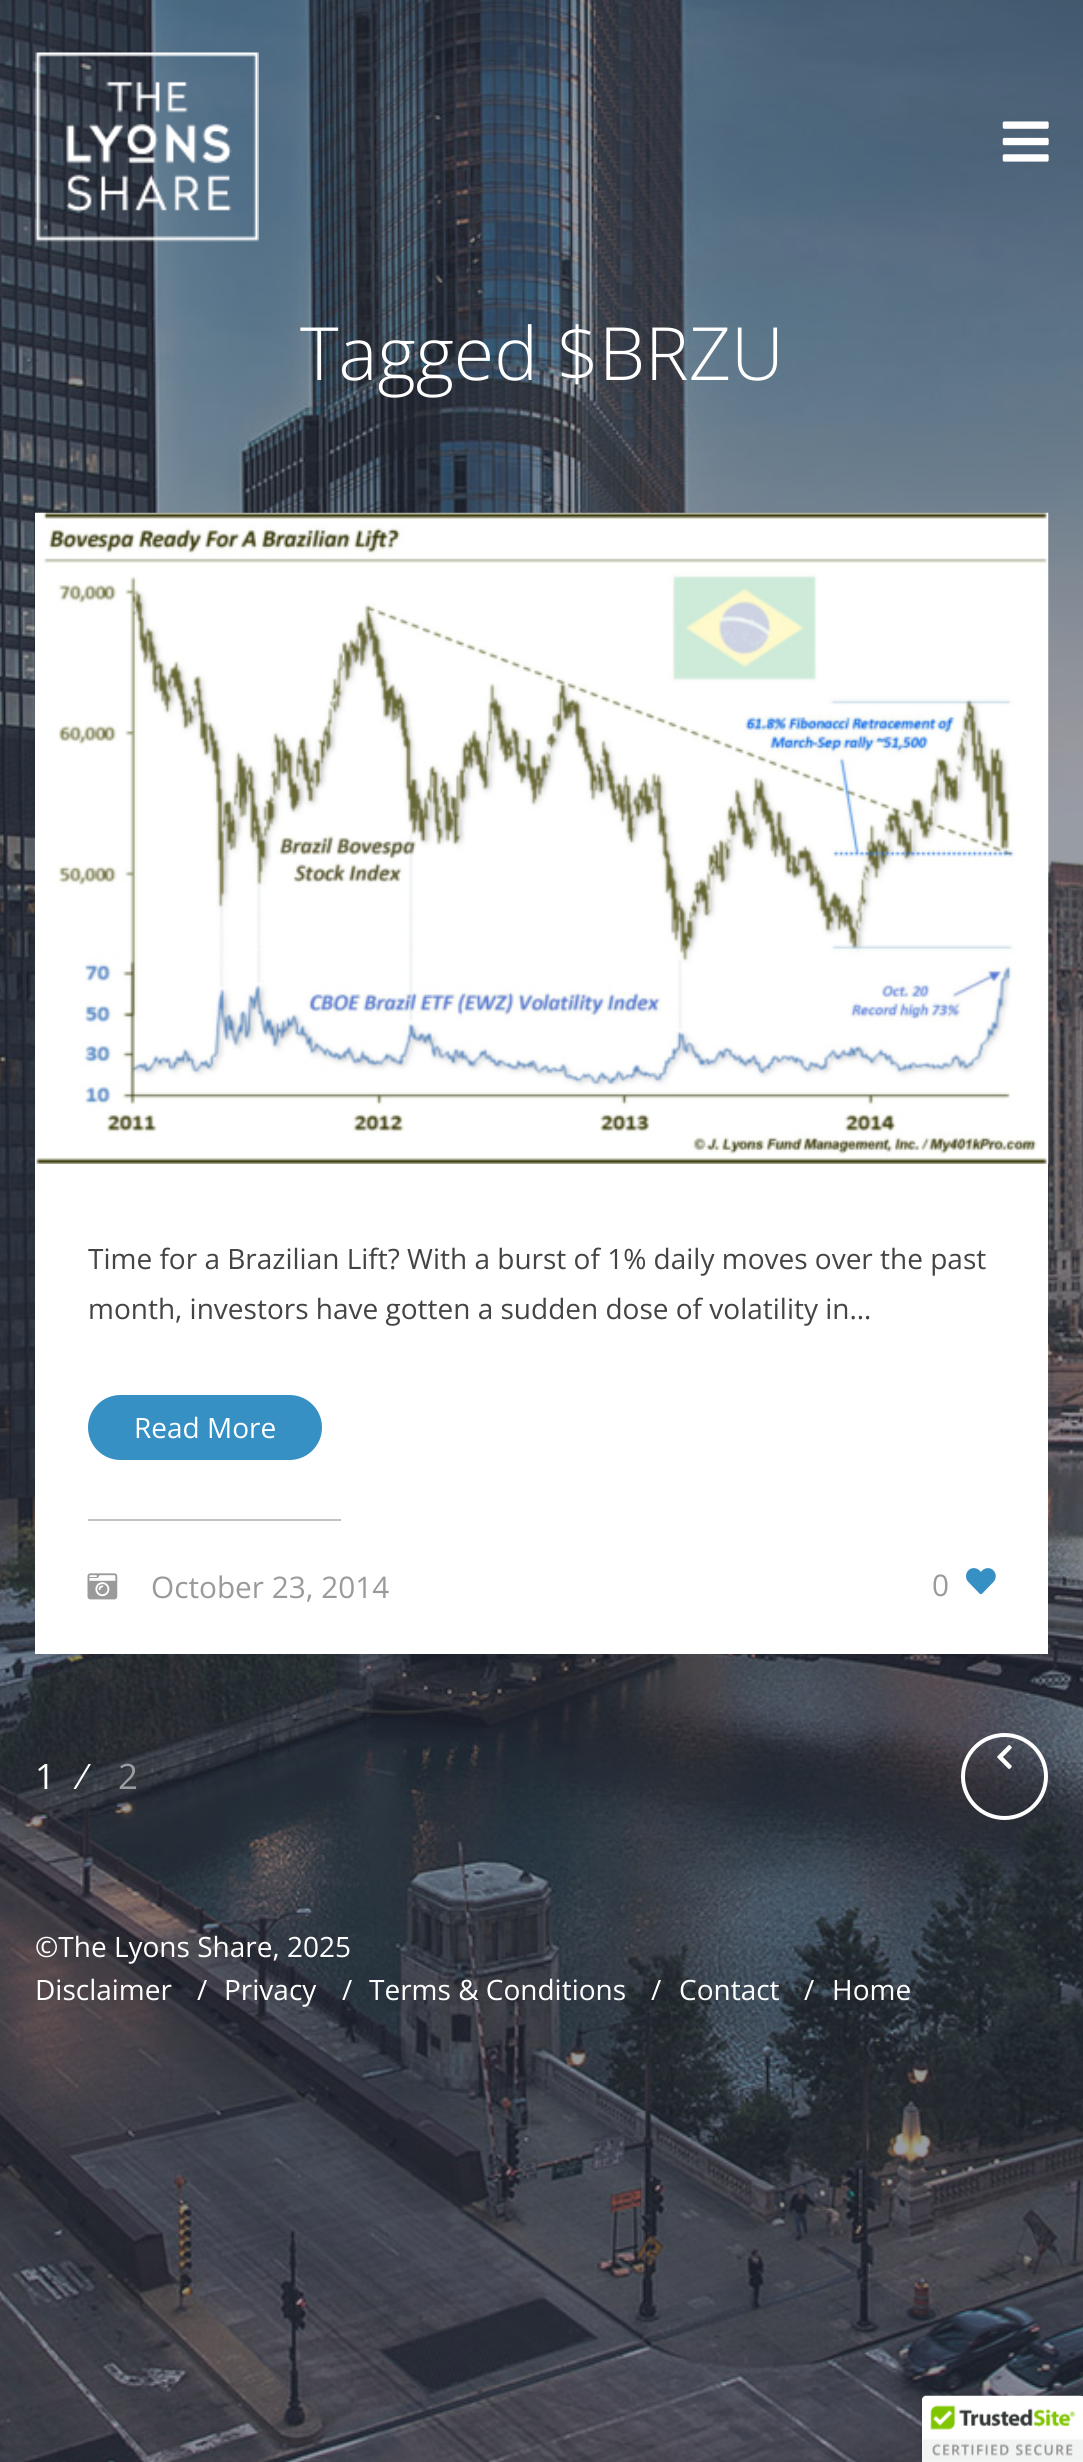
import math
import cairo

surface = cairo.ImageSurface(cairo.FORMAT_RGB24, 1083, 2462)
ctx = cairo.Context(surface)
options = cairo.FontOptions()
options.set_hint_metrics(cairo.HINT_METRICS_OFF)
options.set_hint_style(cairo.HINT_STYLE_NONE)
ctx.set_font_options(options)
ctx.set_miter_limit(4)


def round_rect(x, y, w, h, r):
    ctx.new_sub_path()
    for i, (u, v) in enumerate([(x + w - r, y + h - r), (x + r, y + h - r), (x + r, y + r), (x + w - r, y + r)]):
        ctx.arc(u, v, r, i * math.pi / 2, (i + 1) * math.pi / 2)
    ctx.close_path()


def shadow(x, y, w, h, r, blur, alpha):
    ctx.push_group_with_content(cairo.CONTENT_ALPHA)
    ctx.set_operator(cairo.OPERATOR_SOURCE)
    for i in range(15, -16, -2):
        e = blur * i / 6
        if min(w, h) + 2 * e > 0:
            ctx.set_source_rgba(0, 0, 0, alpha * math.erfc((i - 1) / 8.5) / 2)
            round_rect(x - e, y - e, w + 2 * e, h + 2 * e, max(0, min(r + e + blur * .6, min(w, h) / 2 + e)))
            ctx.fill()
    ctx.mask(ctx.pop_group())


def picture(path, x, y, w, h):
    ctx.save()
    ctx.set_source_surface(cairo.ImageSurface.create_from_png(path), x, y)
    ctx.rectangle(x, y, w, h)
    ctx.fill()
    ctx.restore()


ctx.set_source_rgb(0.196, 0.227, 0.298)
ctx.paint()
picture("img1.png", 0, 0, 1083, 2462)
picture("img2.png", 35, 52, 224, 190)
picture("img3.png", 1002, 121, 47, 41)
ctx.select_font_face("Open Sans Light")
ctx.set_font_size(73.5)
ctx.set_source_rgb(1, 1, 1)
ctx.move_to(300, 380)
ctx.show_text("Tagged $BRZU")
ctx.rectangle(35, 1163, 1013, 491)
ctx.fill()
picture("img4.png", 35, 512, 1014, 652)
ctx.select_font_face("Open Sans")
ctx.set_font_size(28)
ctx.set_source_rgb(0.267, 0.267, 0.267)
ctx.move_to(88, 1269)
ctx.show_text("Time for a Brazilian Lift? With a burst of 1% daily moves over the past")
ctx.move_to(88, 1319)
ctx.show_text("month, investors have gotten a sudden dose of volatility in…")
ctx.set_source_rgb(0.212, 0.565, 0.769)
round_rect(88, 1395, 234, 65, 32.5)
ctx.fill()
ctx.set_source_rgb(1, 1, 1)
ctx.move_to(134, 1438)
ctx.show_text("Read More")
ctx.set_source_rgb(0.761, 0.761, 0.761)
ctx.rectangle(88, 1519, 253, 2)
ctx.fill()
picture("img5.png", 87, 1573, 31, 27)
ctx.set_font_size(29.75)
ctx.set_source_rgb(0.604, 0.604, 0.604)
ctx.move_to(151, 1598)
ctx.show_text("October 23, 2014")
ctx.move_to(932, 1596)
ctx.show_text("0")
picture("img6.png", 966, 1568, 30, 27)
ctx.set_font_size(35)
ctx.set_source_rgb(1, 1, 1)
ctx.move_to(35, 1789)
ctx.show_text("1")
ctx.move_to(80, 1789)
ctx.show_text("⁄")
ctx.set_source_rgb(0.604, 0.612, 0.627)
ctx.move_to(118, 1789)
ctx.show_text("2")
ctx.new_path()
ctx.arc(1004.5, 1776.5, 41.5, 0, 2 * math.pi)
ctx.set_source_rgb(1, 1, 1)
ctx.set_line_width(4)
ctx.stroke()
picture("img7.png", 997, 1745, 15, 24)
ctx.set_font_size(28)
ctx.move_to(35, 1957)
ctx.show_text("©The Lyons Share, 2025")
ctx.move_to(35, 2000)
ctx.show_text("Disclaimer")
ctx.move_to(197, 2000)
ctx.show_text("/")
ctx.move_to(224, 2000)
ctx.show_text("Privacy")
ctx.move_to(342, 2000)
ctx.show_text("/")
ctx.move_to(369, 2000)
ctx.show_text("Terms & Conditions")
ctx.move_to(651, 2000)
ctx.show_text("/")
ctx.move_to(679, 2000)
ctx.show_text("Contact")
ctx.move_to(804, 2000)
ctx.show_text("/")
ctx.move_to(832, 2000)
ctx.show_text("Home")
ctx.set_source_rgb(0, 0, 0)
shadow(922, 2396, 161, 66, 4, 4.5, 0.2)
ctx.set_source_rgb(1, 1, 1)
ctx.new_path()
ctx.move_to(926, 2396)
ctx.line_to(1083, 2396)
ctx.line_to(1083, 2462)
ctx.line_to(922, 2462)
ctx.line_to(922, 2400)
ctx.curve_to(922, 2398, 924, 2396, 926, 2396)
ctx.close_path()
ctx.fill()
picture("img8.png", 922, 2395, 161, 67)
surface.write_to_png("page.png")
